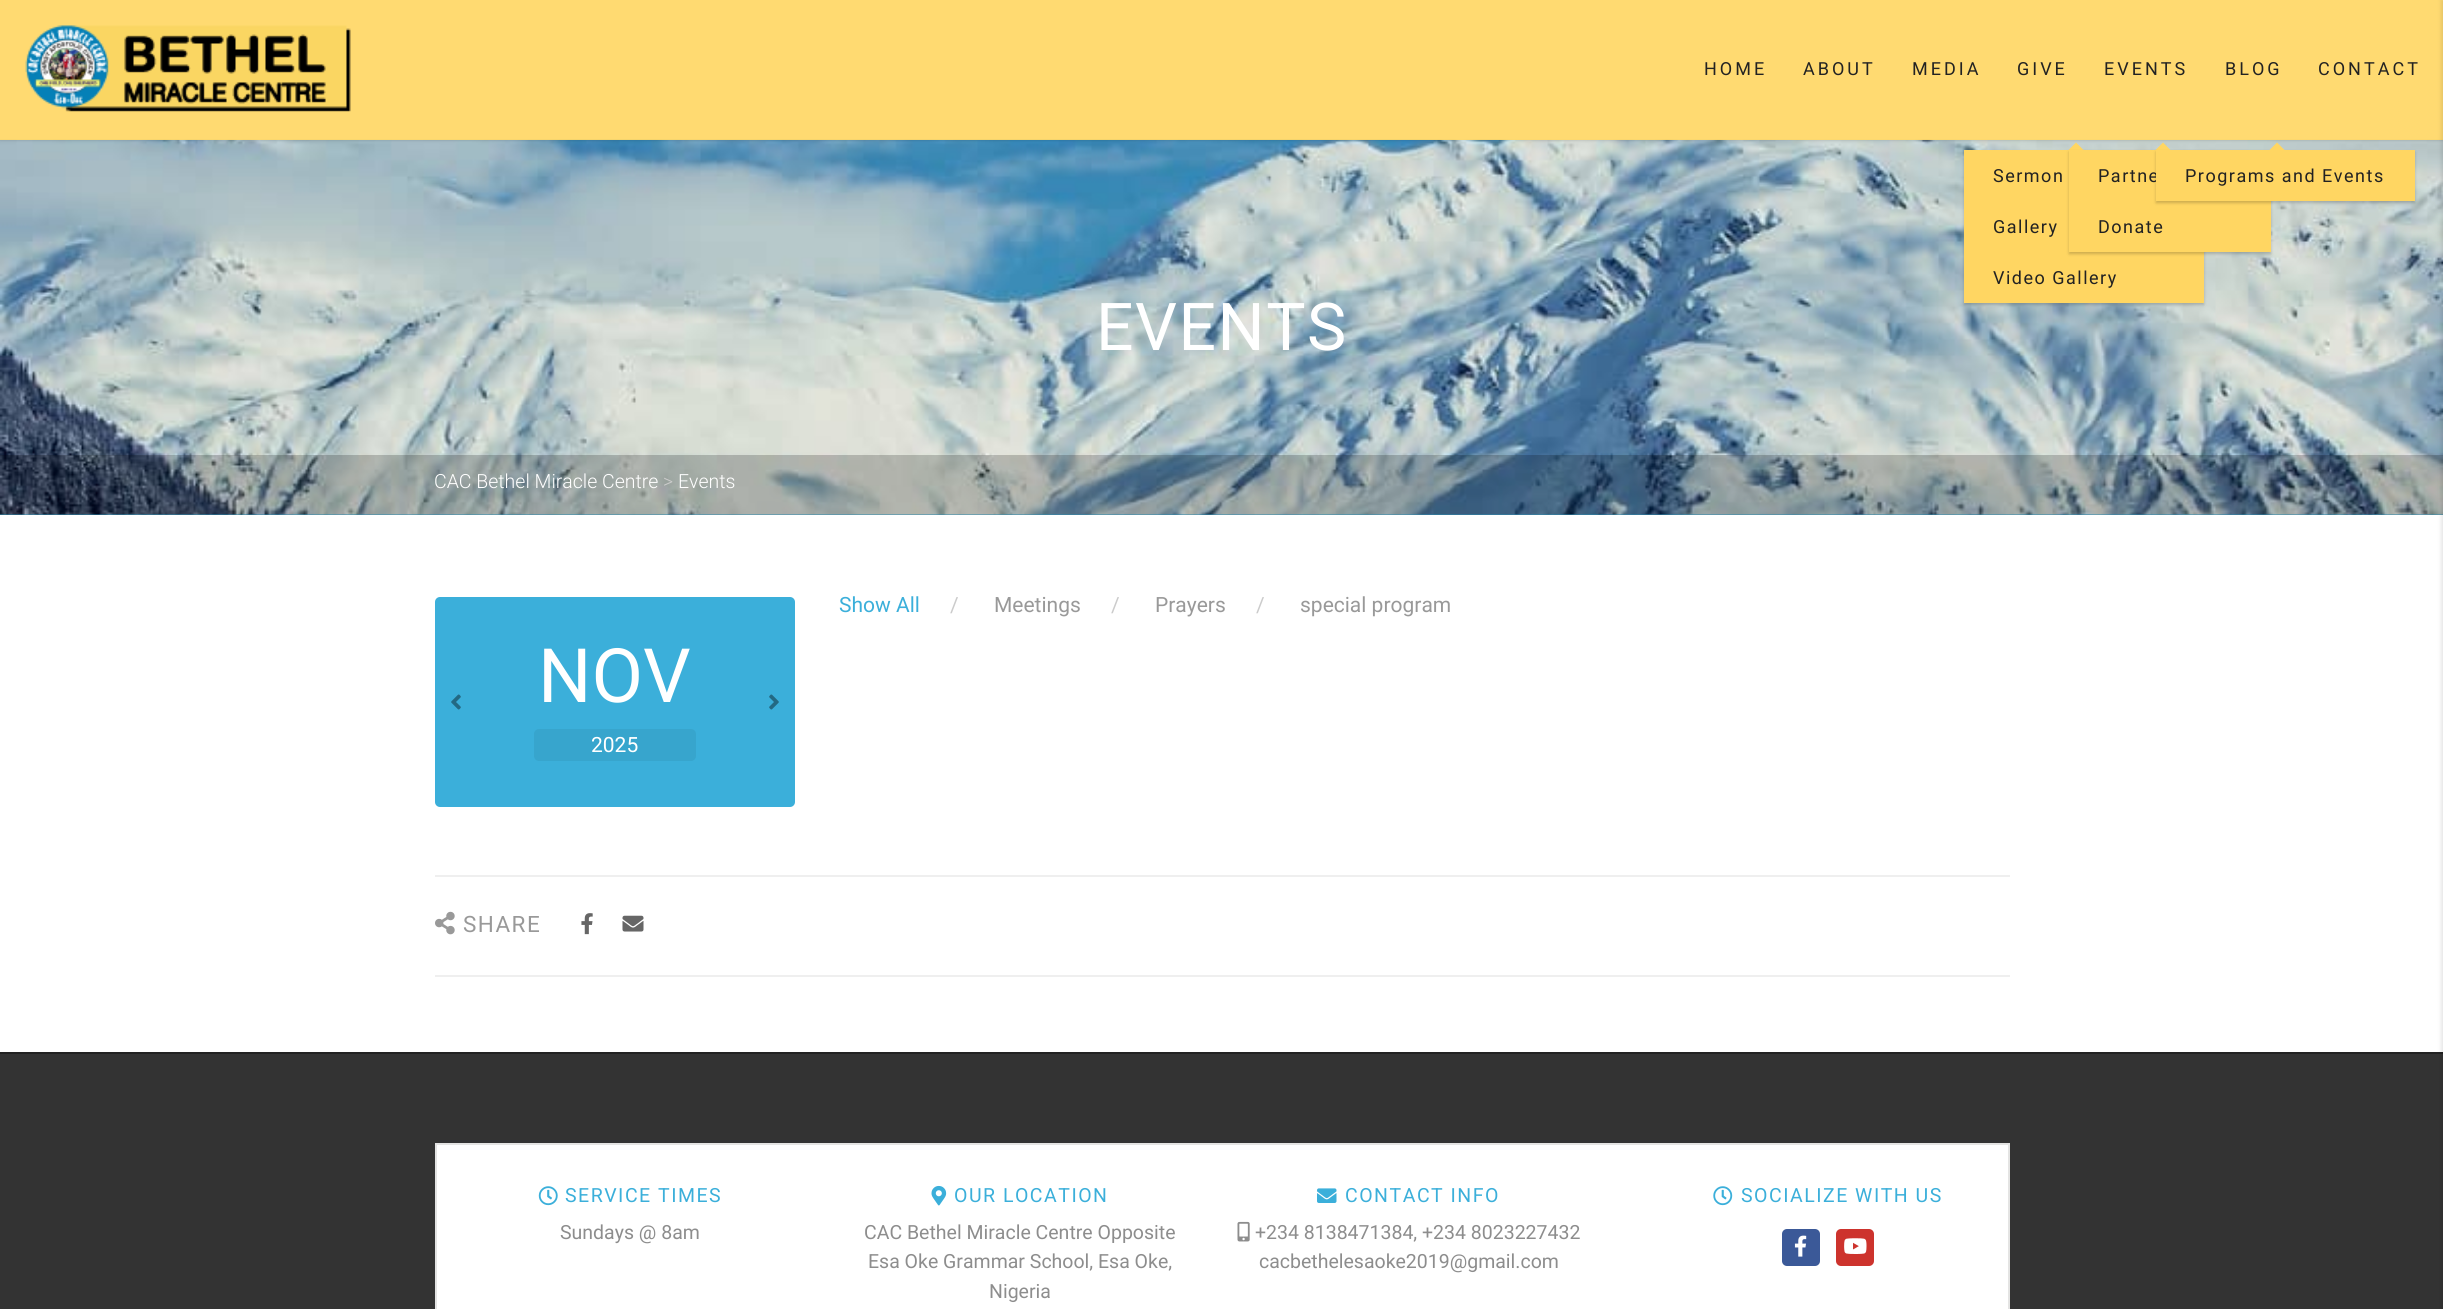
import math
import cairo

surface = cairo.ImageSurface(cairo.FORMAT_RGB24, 2443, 1309)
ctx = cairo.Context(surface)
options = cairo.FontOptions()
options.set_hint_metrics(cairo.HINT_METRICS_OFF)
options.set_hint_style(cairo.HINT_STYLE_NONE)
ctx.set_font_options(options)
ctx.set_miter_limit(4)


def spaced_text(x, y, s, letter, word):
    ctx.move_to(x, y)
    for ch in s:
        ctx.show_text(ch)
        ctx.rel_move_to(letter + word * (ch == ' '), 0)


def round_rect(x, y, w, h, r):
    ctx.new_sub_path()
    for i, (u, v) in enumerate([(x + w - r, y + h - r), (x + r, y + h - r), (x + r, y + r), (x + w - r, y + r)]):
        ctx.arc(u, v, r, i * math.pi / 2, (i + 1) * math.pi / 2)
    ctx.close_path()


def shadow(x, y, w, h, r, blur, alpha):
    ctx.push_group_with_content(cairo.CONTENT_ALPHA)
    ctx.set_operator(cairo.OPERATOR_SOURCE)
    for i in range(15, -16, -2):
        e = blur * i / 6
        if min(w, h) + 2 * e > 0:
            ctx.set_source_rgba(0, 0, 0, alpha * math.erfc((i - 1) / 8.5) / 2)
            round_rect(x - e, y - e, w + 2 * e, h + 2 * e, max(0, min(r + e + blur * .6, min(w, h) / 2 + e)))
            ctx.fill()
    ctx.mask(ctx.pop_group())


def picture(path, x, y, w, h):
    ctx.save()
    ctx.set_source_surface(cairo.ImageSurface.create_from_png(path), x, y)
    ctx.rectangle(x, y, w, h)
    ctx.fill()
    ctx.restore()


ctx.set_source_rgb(1, 1, 1)
ctx.paint()
ctx.set_source_rgb(0.231, 0.686, 0.855)
ctx.rectangle(0, 514, 2443, 1)
ctx.fill()
picture("img2.png", 0, 139, 2443, 376)
ctx.save()
ctx.set_fill_rule(cairo.FILL_RULE_EVEN_ODD)
ctx.new_path()
ctx.move_to(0, 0)
ctx.line_to(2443, 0)
ctx.line_to(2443, 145)
ctx.line_to(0, 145)
ctx.close_path()
ctx.move_to(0, 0)
ctx.line_to(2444, 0)
ctx.line_to(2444, 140)
ctx.line_to(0, 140)
ctx.close_path()
ctx.clip()
ctx.set_source_rgb(0, 0, 0)
shadow(0, 2, 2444, 139, 0, 1, 0.1)
ctx.restore()
ctx.set_source_rgba(1, 0.839, 0.384, 0.9)
ctx.rectangle(0, 0, 2443, 140)
ctx.fill()
picture("img1.png", 25, 25, 326, 87)
ctx.select_font_face("Roboto")
ctx.set_font_size(18)
ctx.set_source_rgb(0.133, 0.133, 0.133)
spaced_text(1704, 75, "HOME", 3, 0)
spaced_text(1803, 75, "ABOUT", 3, 0)
spaced_text(1912, 75, "MEDIA", 3, 0)
ctx.set_source_rgb(0, 0, 0)
shadow(1964, 152, 240, 153, 0, 1.5, 0.2)
ctx.set_source_rgb(1, 0.839, 0.384)
ctx.rectangle(1964, 150, 240, 153)
ctx.fill()
ctx.new_path()
ctx.move_to(2083.5, 150)
ctx.line_to(2068.5, 150)
ctx.line_to(2076, 142.5)
ctx.close_path()
ctx.fill()
ctx.set_source_rgb(0.133, 0.133, 0.133)
spaced_text(1993, 182, "Sermon", 1.5, 0)
spaced_text(1993, 233, "Gallery", 1.5, 0)
spaced_text(1993, 284, "Video Gallery", 1.5, 0)
spaced_text(2017, 75, "GIVE", 3, 0)
ctx.set_source_rgb(0, 0, 0)
shadow(2069, 152, 202, 102, 0, 1.5, 0.2)
ctx.set_source_rgb(1, 0.839, 0.384)
ctx.rectangle(2069, 150, 202, 102)
ctx.fill()
ctx.new_path()
ctx.move_to(2170.5, 150)
ctx.line_to(2155.5, 150)
ctx.line_to(2163, 142.5)
ctx.close_path()
ctx.fill()
ctx.set_source_rgb(0.133, 0.133, 0.133)
spaced_text(2098, 182, "Partne", 1.5, 0)
spaced_text(2098, 233, "Donate", 1.5, 0)
spaced_text(2104, 75, "EVENTS", 3, 0)
ctx.set_source_rgb(0, 0, 0)
shadow(2156, 152, 259, 51, 0, 1.5, 0.2)
ctx.set_source_rgb(1, 0.839, 0.384)
ctx.rectangle(2156, 150, 259, 51)
ctx.fill()
ctx.new_path()
ctx.move_to(2284.5, 150)
ctx.line_to(2269.5, 150)
ctx.line_to(2277, 142.5)
ctx.close_path()
ctx.fill()
ctx.set_source_rgb(0.133, 0.133, 0.133)
spaced_text(2185, 182, "Programs and Events", 1.5, 0)
spaced_text(2225, 75, "BLOG", 3, 0)
spaced_text(2318, 75, "CONTACT", 3, 0)
ctx.set_font_size(66)
ctx.set_source_rgb(1, 1, 1)
spaced_text(1096, 350, "EVENTS", 1.5, 0)
ctx.set_source_rgba(0, 0, 0, 0.2)
ctx.rectangle(0, 455, 2443, 60)
ctx.fill()
ctx.select_font_face("Roboto Light")
ctx.set_font_size(19.5)
ctx.set_source_rgb(1, 1, 1)
ctx.move_to(434, 488)
ctx.show_text("CAC Bethel Miracle Centre")
ctx.set_source_rgb(0.8, 0.8, 0.8)
ctx.move_to(663, 488)
ctx.show_text(">")
ctx.set_source_rgb(1, 1, 1)
ctx.move_to(678, 488)
ctx.show_text("Events")
ctx.select_font_face("Roboto")
ctx.set_font_size(21)
ctx.set_source_rgb(0.231, 0.686, 0.855)
ctx.move_to(839, 612)
ctx.show_text("Show All")
ctx.set_source_rgb(0.8, 0.8, 0.8)
ctx.move_to(950, 612)
ctx.show_text("/")
ctx.set_source_rgb(0.6, 0.6, 0.6)
ctx.move_to(994, 612)
ctx.show_text("Meetings")
ctx.set_source_rgb(0.8, 0.8, 0.8)
ctx.move_to(1111, 612)
ctx.show_text("/")
ctx.set_source_rgb(0.6, 0.6, 0.6)
ctx.move_to(1155, 612)
ctx.show_text("Prayers")
ctx.set_source_rgb(0.8, 0.8, 0.8)
ctx.move_to(1256, 612)
ctx.show_text("/")
ctx.set_source_rgb(0.6, 0.6, 0.6)
ctx.move_to(1300, 612)
ctx.show_text("special program")
ctx.set_source_rgb(0.231, 0.686, 0.855)
round_rect(435, 597, 360, 210, 5)
ctx.fill()
picture("img3.png", 451, 694, 10, 16)
ctx.set_font_size(75)
ctx.set_source_rgb(1, 1, 1)
ctx.move_to(538, 702)
ctx.show_text("NOV")
picture("img4.png", 769, 694, 10, 16)
ctx.set_source_rgb(0.216, 0.647, 0.804)
round_rect(534, 729, 162, 32, 5)
ctx.fill()
ctx.set_font_size(21)
ctx.set_source_rgb(1, 1, 1)
ctx.move_to(591, 752)
ctx.show_text("2025")
ctx.set_source_rgb(0.937, 0.937, 0.937)
ctx.rectangle(435, 875, 1575, 2)
ctx.fill()
ctx.rectangle(435, 975, 1575, 2)
ctx.fill()
picture("img5.png", 435, 911, 20, 24)
ctx.set_font_size(22.5)
ctx.set_source_rgb(0.6, 0.6, 0.6)
spaced_text(463, 932, "SHARE", 1.5, 0)
picture("img6.png", 581, 913, 12, 22)
picture("img7.png", 622, 915, 22, 17)
ctx.set_source_rgb(0.2, 0.2, 0.2)
ctx.rectangle(0, 1054, 2443, 255)
ctx.fill()
ctx.set_source_rgb(0.133, 0.133, 0.133)
ctx.rectangle(0, 1052, 2443, 2)
ctx.fill()
ctx.set_source_rgb(1, 1, 1)
ctx.rectangle(436, 1144, 1573, 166)
ctx.fill_preserve()
ctx.set_source_rgb(0.894, 0.894, 0.89)
ctx.stroke()
picture("img8.png", 538, 1186, 20, 20)
ctx.set_font_size(19.5)
ctx.set_source_rgb(0.231, 0.686, 0.855)
spaced_text(565, 1202, "SERVICE TIMES", 1.5, 0)
ctx.set_source_rgb(0.553, 0.553, 0.553)
ctx.move_to(560, 1239)
ctx.show_text("Sundays @ 8am")
picture("img9.png", 931, 1185, 16, 21)
ctx.set_source_rgb(0.231, 0.686, 0.855)
spaced_text(954, 1202, "OUR LOCATION", 1.5, 0)
ctx.set_source_rgb(0.553, 0.553, 0.553)
ctx.move_to(864, 1239)
ctx.show_text("CAC Bethel Miracle Centre Opposite")
ctx.move_to(868, 1268)
ctx.show_text("Esa Oke Grammar School, Esa Oke,")
ctx.move_to(989, 1298)
ctx.show_text("Nigeria")
picture("img10.png", 1317, 1188, 20, 15)
ctx.set_source_rgb(0.231, 0.686, 0.855)
spaced_text(1345, 1202, "CONTACT INFO", 1.5, 0)
picture("img11.png", 1237, 1221, 13, 21)
ctx.set_source_rgb(0.553, 0.553, 0.553)
ctx.move_to(1255, 1239)
ctx.show_text("+234 8138471384, +234 8023227432")
ctx.move_to(1259, 1268)
ctx.show_text("cacbethelesaoke2019@gmail.com")
picture("img12.png", 1713, 1186, 20, 20)
ctx.set_source_rgb(0.231, 0.686, 0.855)
spaced_text(1741, 1202, "SOCIALIZE WITH US", 1.5, 0)
ctx.set_source_rgb(0.231, 0.349, 0.596)
round_rect(1782, 1229, 38, 37, 5)
ctx.fill()
picture("img13.png", 1794, 1235, 13, 22)
ctx.set_source_rgb(0.804, 0.2, 0.176)
round_rect(1836, 1229, 38, 37, 5)
ctx.fill()
picture("img14.png", 1844, 1238, 23, 16)
ctx.set_source_rgb(0, 0, 0)
shadow(2441, 0, 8, 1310, 0, 2, 0.1)
surface.write_to_png("page.png")
